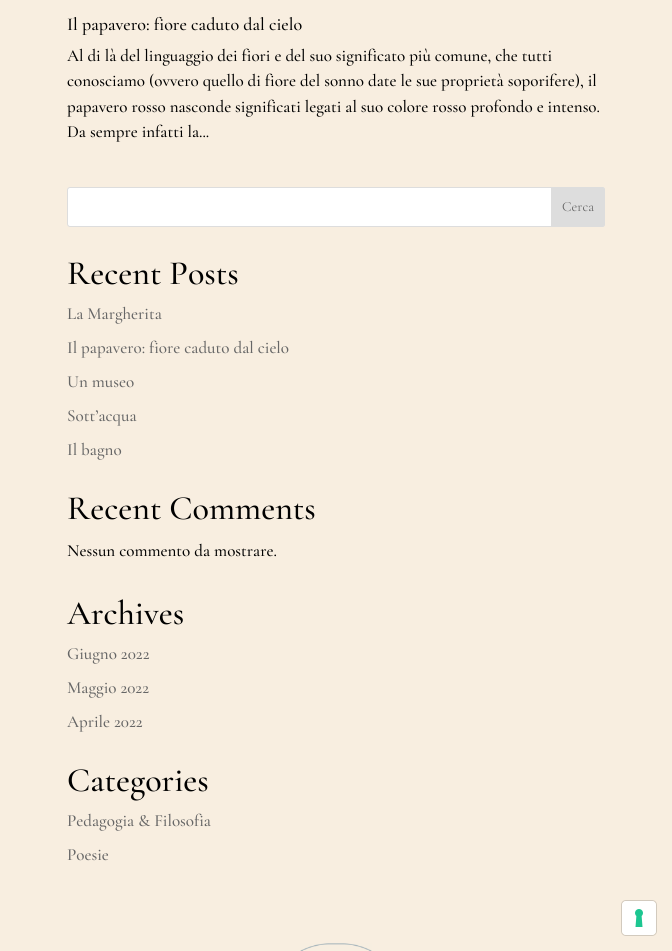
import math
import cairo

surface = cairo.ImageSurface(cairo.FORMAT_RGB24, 672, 951)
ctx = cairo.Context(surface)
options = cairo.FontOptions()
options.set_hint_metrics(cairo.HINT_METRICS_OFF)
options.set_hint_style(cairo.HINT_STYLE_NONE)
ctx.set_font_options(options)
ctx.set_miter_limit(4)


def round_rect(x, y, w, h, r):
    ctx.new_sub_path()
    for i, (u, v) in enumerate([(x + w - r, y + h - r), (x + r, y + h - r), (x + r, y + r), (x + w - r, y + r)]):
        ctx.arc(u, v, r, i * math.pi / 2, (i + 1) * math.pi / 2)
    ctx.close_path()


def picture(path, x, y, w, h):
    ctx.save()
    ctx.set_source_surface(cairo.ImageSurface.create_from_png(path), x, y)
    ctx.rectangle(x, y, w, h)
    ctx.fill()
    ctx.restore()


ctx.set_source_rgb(0.969, 0.933, 0.878)
ctx.paint()
ctx.select_font_face("Cormorant Garamond Medium")
ctx.set_font_size(18)
ctx.set_source_rgb(0, 0, 0)
ctx.move_to(67, 30)
ctx.show_text("Il papavero: fiore caduto dal cielo")
ctx.set_font_size(17)
ctx.move_to(67, 61)
ctx.show_text("Al di là del linguaggio dei fiori e del suo significato più comune, che tutti")
ctx.move_to(67, 86)
ctx.show_text("conosciamo (ovvero quello di fiore del sonno date le sue proprietà soporifere), il")
ctx.move_to(67, 112)
ctx.show_text("papavero rosso nasconde significati legati al suo colore rosso profondo e intenso.")
ctx.move_to(67, 137)
ctx.show_text("Da sempre infatti la...")
ctx.set_source_rgb(1, 1, 1)
round_rect(67.5, 187.5, 537, 39, 2.5)
ctx.fill_preserve()
ctx.set_source_rgb(0.867, 0.867, 0.867)
ctx.set_line_width(1)
ctx.stroke()
ctx.new_path()
ctx.move_to(551.5, 187.5)
ctx.line_to(602, 187.5)
ctx.curve_to(603.5, 187.5, 604.5, 188.5, 604.5, 190)
ctx.line_to(604.5, 224)
ctx.curve_to(604.5, 225.5, 603.5, 226.5, 602, 226.5)
ctx.line_to(551.5, 226.5)
ctx.close_path()
ctx.fill_preserve()
ctx.stroke()
ctx.select_font_face("Cormorant Garamond")
ctx.set_font_size(14)
ctx.set_source_rgb(0.4, 0.4, 0.4)
ctx.move_to(562, 211)
ctx.show_text("Cerca")
ctx.select_font_face("Cormorant Garamond Medium")
ctx.set_font_size(34)
ctx.set_source_rgb(0, 0, 0)
ctx.move_to(67, 284)
ctx.show_text("Recent Posts")
ctx.set_font_size(17)
ctx.set_source_rgb(0.4, 0.4, 0.4)
ctx.move_to(67, 319)
ctx.show_text("La Margherita")
ctx.move_to(67, 353)
ctx.show_text("Il papavero: fiore caduto dal cielo")
ctx.move_to(67, 387)
ctx.show_text("Un museo")
ctx.move_to(67, 421)
ctx.show_text("Sott’acqua")
ctx.move_to(67, 455)
ctx.show_text("Il bagno")
ctx.set_font_size(34)
ctx.set_source_rgb(0, 0, 0)
ctx.move_to(67, 519)
ctx.show_text("Recent Comments")
ctx.set_font_size(17)
ctx.move_to(67, 556)
ctx.show_text("Nessun commento da mostrare.")
ctx.set_font_size(34)
ctx.move_to(67, 624)
ctx.show_text("Archives")
ctx.set_font_size(17)
ctx.set_source_rgb(0.4, 0.4, 0.4)
ctx.move_to(67, 659)
ctx.show_text("Giugno 2022")
ctx.move_to(67, 693)
ctx.show_text("Maggio 2022")
ctx.move_to(67, 727)
ctx.show_text("Aprile 2022")
ctx.set_font_size(34)
ctx.set_source_rgb(0, 0, 0)
ctx.move_to(67, 791)
ctx.show_text("Categories")
ctx.set_font_size(17)
ctx.set_source_rgb(0.4, 0.4, 0.4)
ctx.move_to(67, 826)
ctx.show_text("Pedagogia & Filosofia")
ctx.move_to(67, 860)
ctx.show_text("Poesie")
picture("img1.png", 300, 943, 72, 8)
round_rect(621.5, 900.5, 35, 35, 4.5)
ctx.set_source_rgb(0.824, 0.792, 0.745)
ctx.stroke()
ctx.set_source_rgb(1, 1, 1)
round_rect(622, 901, 34, 34, 4)
ctx.fill()
picture("img2.png", 635, 909, 8, 18)
surface.write_to_png("page.png")
